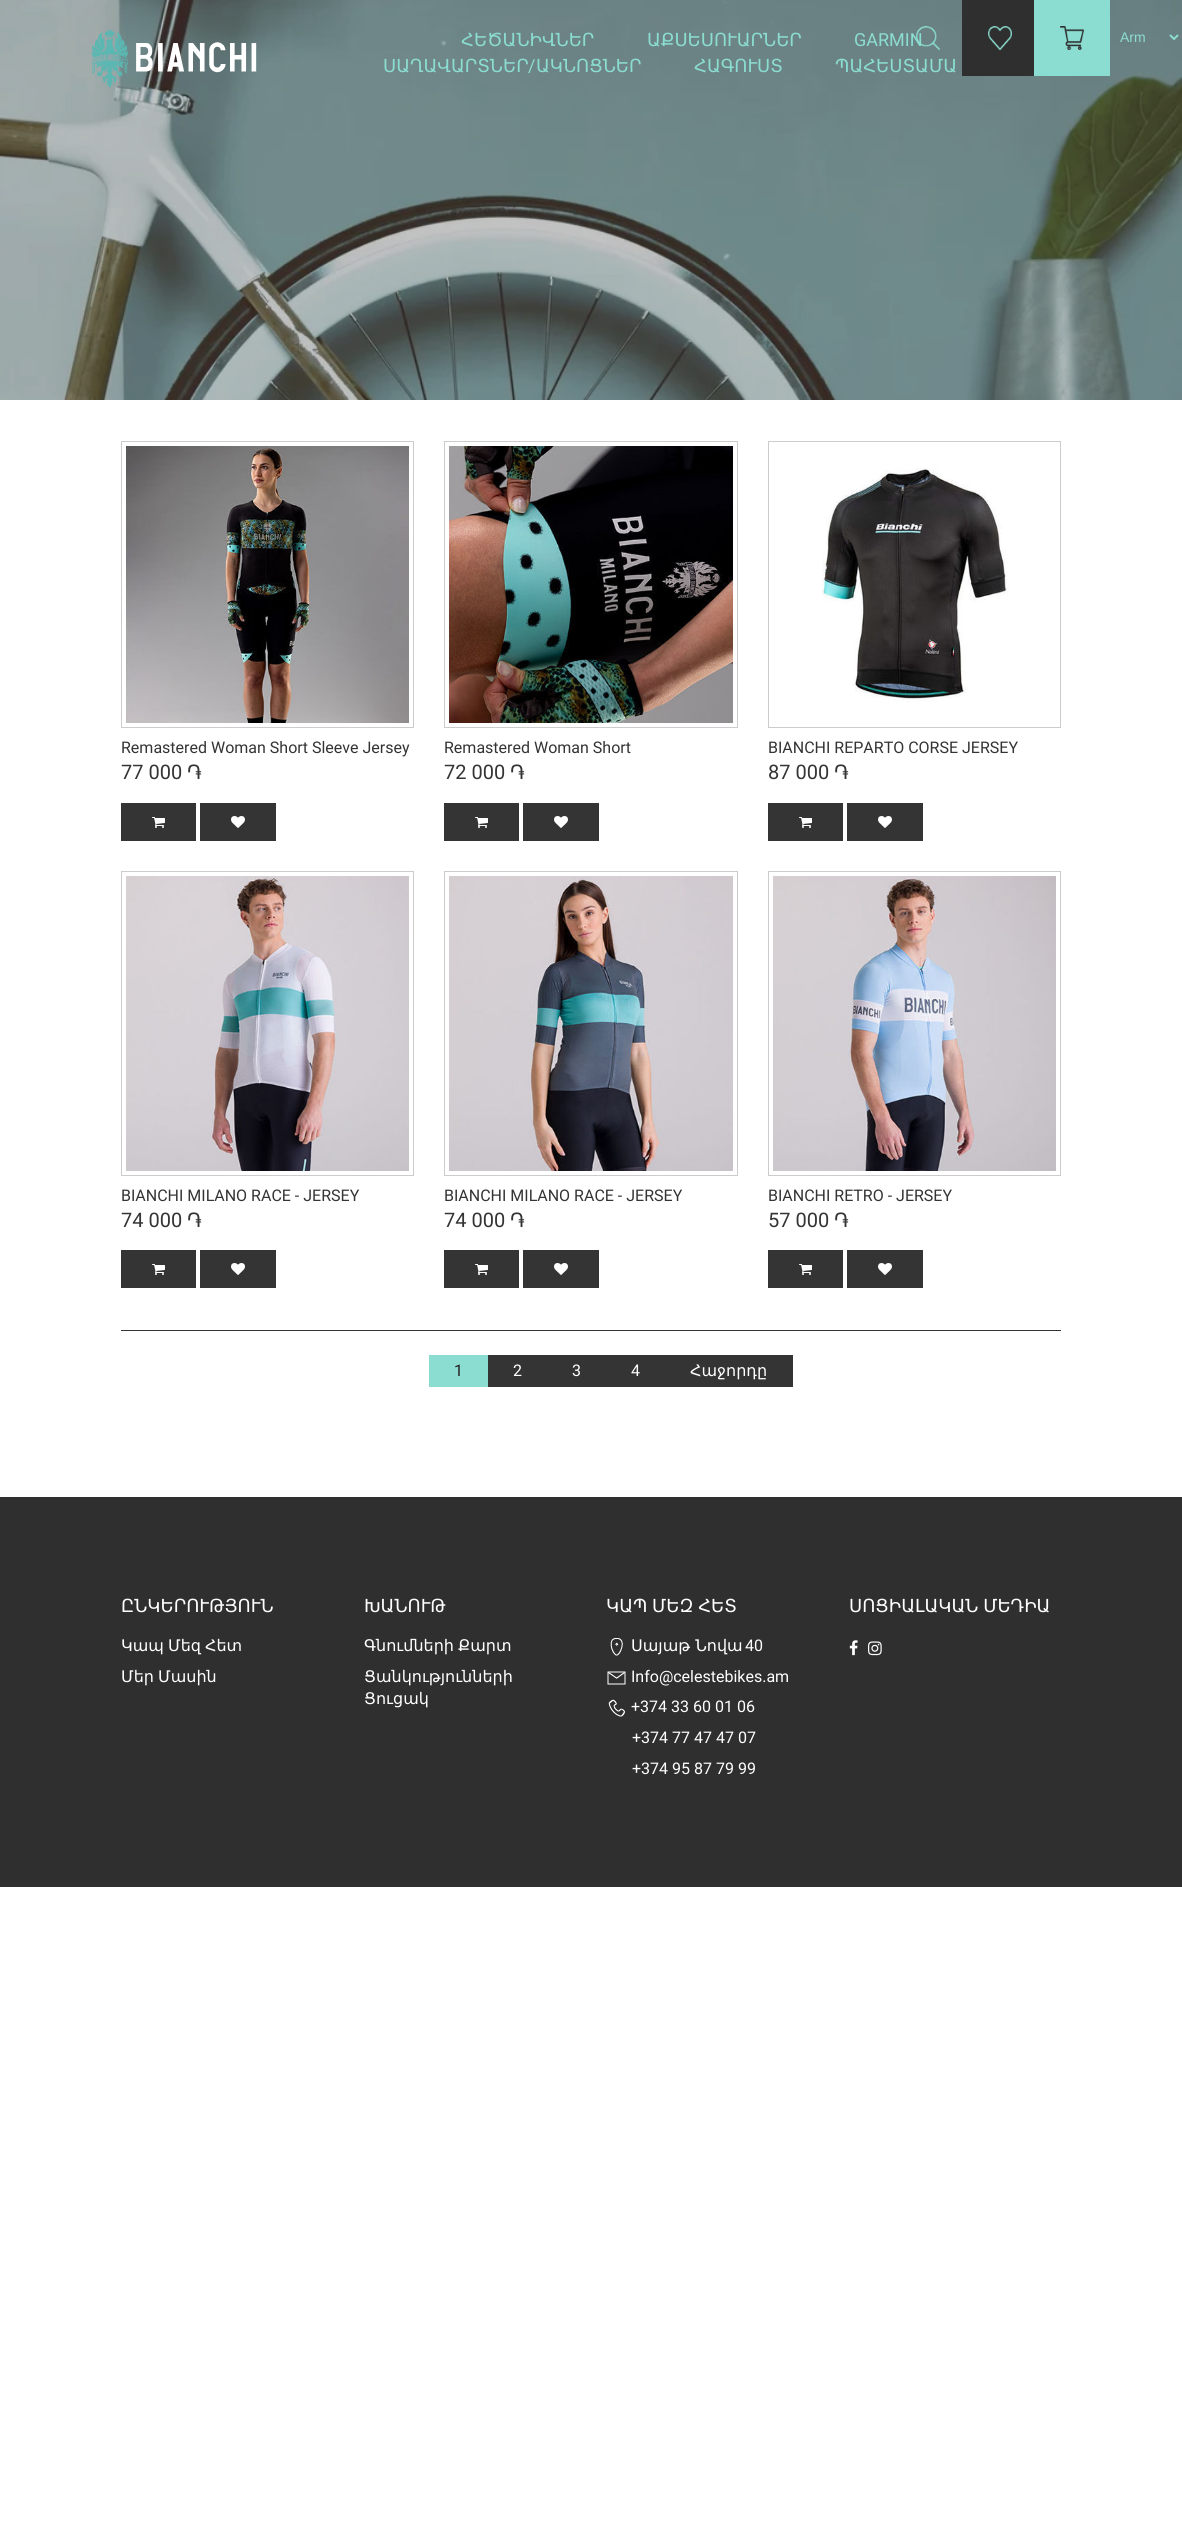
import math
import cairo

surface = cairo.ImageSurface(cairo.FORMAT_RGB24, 1182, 2522)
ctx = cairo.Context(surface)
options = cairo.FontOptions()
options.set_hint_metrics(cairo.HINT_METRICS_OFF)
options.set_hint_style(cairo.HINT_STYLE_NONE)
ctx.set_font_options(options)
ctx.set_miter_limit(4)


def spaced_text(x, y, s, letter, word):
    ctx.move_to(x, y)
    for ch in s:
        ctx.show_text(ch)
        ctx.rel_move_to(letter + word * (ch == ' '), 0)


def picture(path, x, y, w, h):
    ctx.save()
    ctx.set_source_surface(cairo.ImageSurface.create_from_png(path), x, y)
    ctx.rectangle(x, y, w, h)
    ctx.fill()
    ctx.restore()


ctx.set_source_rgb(1, 1, 1)
ctx.paint()
picture("img5.png", 0, 0, 1182, 400)
picture("img1.png", 91, 30, 166, 58)
ctx.select_font_face("DejaVu Sans")
ctx.set_font_size(18)
ctx.set_source_rgb(0.545, 0.867, 0.82)
ctx.move_to(461, 46)
ctx.show_text("ՀԵԾԱՆԻՎՆԵՐ")
ctx.move_to(647, 46)
ctx.show_text("ԱՔՍԵՍՈՒԱՐՆԵՐ")
ctx.select_font_face("Roboto")
ctx.move_to(854, 46)
ctx.show_text("GARMIN")
ctx.select_font_face("DejaVu Sans")
ctx.move_to(383, 72)
ctx.show_text("ՍԱՂԱՎԱՐՏՆԵՐ")
ctx.select_font_face("Roboto")
ctx.move_to(528, 72)
ctx.show_text("/")
ctx.select_font_face("DejaVu Sans")
ctx.move_to(536, 72)
ctx.show_text("ԱԿՆՈՑՆԵՐ")
ctx.move_to(694, 72)
ctx.show_text("ՀԱԳՈՒՍՏ")
ctx.move_to(835, 72)
ctx.show_text("ՊԱՀԵՍՏԱՄԱ")
picture("img2.png", 916, 26, 24, 24)
ctx.set_source_rgb(0.184, 0.184, 0.184)
ctx.rectangle(962, 0, 72, 76)
ctx.fill()
picture("img3.png", 988, 26, 24, 24)
ctx.set_source_rgb(0.545, 0.867, 0.82)
ctx.rectangle(1034, 0, 76, 76)
ctx.fill()
picture("img4.png", 1060, 26, 24, 24)
ctx.new_path()
ctx.move_to(1170, 35)
ctx.line_to(1174, 39)
ctx.line_to(1178, 35)
ctx.stroke()
ctx.select_font_face("Liberation Sans")
ctx.set_font_size(14)
ctx.move_to(1120, 42)
ctx.show_text("Arm")
ctx.rectangle(121.5, 441.5, 292, 286)
ctx.set_source_rgb(0.8, 0.8, 0.8)
ctx.set_line_width(1)
ctx.stroke()
picture("img6.png", 126, 446, 283, 277)
ctx.select_font_face("Roboto")
ctx.set_font_size(16)
ctx.set_source_rgb(0.204, 0.204, 0.204)
ctx.move_to(121, 753)
ctx.show_text("Remastered Woman Short Sleeve Jersey")
ctx.set_font_size(20)
ctx.move_to(121, 779)
ctx.show_text("77 000")
ctx.select_font_face("FreeSans")
ctx.move_to(187, 779)
ctx.show_text("֏")
ctx.rectangle(121, 803, 75, 38)
ctx.fill()
picture("img7.png", 152, 817, 13, 11)
ctx.rectangle(200, 803, 76, 38)
ctx.fill()
picture("img8.png", 231, 816, 14, 12)
ctx.rectangle(444.5, 441.5, 293, 286)
ctx.set_source_rgb(0.8, 0.8, 0.8)
ctx.stroke()
picture("img9.png", 449, 446, 284, 277)
ctx.select_font_face("Roboto")
ctx.set_font_size(16)
ctx.set_source_rgb(0.204, 0.204, 0.204)
ctx.move_to(444, 753)
ctx.show_text("Remastered Woman Short")
ctx.set_font_size(20)
ctx.move_to(444, 779)
ctx.show_text("72 000")
ctx.select_font_face("FreeSans")
ctx.move_to(510, 779)
ctx.show_text("֏")
ctx.rectangle(444, 803, 75, 38)
ctx.fill()
picture("img7.png", 475, 817, 13, 11)
ctx.rectangle(523, 803, 76, 38)
ctx.fill()
picture("img8.png", 554, 816, 14, 12)
ctx.rectangle(768.5, 441.5, 292, 286)
ctx.set_source_rgb(0.8, 0.8, 0.8)
ctx.stroke()
picture("img10.png", 822, 468, 187, 234)
ctx.select_font_face("Roboto")
ctx.set_font_size(16)
ctx.set_source_rgb(0.204, 0.204, 0.204)
ctx.move_to(768, 753)
ctx.show_text("BIANCHI REPARTO CORSE JERSEY")
ctx.set_font_size(20)
ctx.move_to(768, 779)
ctx.show_text("87 000")
ctx.select_font_face("FreeSans")
ctx.move_to(834, 779)
ctx.show_text("֏")
ctx.rectangle(768, 803, 75, 38)
ctx.fill()
picture("img7.png", 799, 817, 13, 11)
ctx.rectangle(847, 803, 76, 38)
ctx.fill()
picture("img8.png", 878, 816, 14, 12)
ctx.rectangle(121.5, 871.5, 292, 304)
ctx.set_source_rgb(0.8, 0.8, 0.8)
ctx.stroke()
picture("img11.png", 126, 876, 283, 295)
ctx.select_font_face("Roboto")
ctx.set_font_size(16)
ctx.set_source_rgb(0.204, 0.204, 0.204)
ctx.move_to(121, 1201)
ctx.show_text("BIANCHI MILANO RACE - JERSEY")
ctx.set_font_size(20)
ctx.move_to(121, 1227)
ctx.show_text("74 000")
ctx.select_font_face("FreeSans")
ctx.move_to(187, 1227)
ctx.show_text("֏")
ctx.rectangle(121, 1250, 75, 38)
ctx.fill()
picture("img7.png", 152, 1264, 13, 11)
ctx.rectangle(200, 1250, 76, 38)
ctx.fill()
picture("img8.png", 231, 1263, 14, 12)
ctx.rectangle(444.5, 871.5, 293, 304)
ctx.set_source_rgb(0.8, 0.8, 0.8)
ctx.stroke()
picture("img12.png", 449, 876, 284, 295)
ctx.select_font_face("Roboto")
ctx.set_font_size(16)
ctx.set_source_rgb(0.204, 0.204, 0.204)
ctx.move_to(444, 1201)
ctx.show_text("BIANCHI MILANO RACE - JERSEY")
ctx.set_font_size(20)
ctx.move_to(444, 1227)
ctx.show_text("74 000")
ctx.select_font_face("FreeSans")
ctx.move_to(510, 1227)
ctx.show_text("֏")
ctx.rectangle(444, 1250, 75, 38)
ctx.fill()
picture("img7.png", 475, 1264, 13, 11)
ctx.rectangle(523, 1250, 76, 38)
ctx.fill()
picture("img8.png", 554, 1263, 14, 12)
ctx.rectangle(768.5, 871.5, 292, 304)
ctx.set_source_rgb(0.8, 0.8, 0.8)
ctx.stroke()
picture("img13.png", 773, 876, 283, 295)
ctx.select_font_face("Roboto")
ctx.set_font_size(16)
ctx.set_source_rgb(0.204, 0.204, 0.204)
ctx.move_to(768, 1201)
ctx.show_text("BIANCHI RETRO - JERSEY")
ctx.set_font_size(20)
ctx.move_to(768, 1227)
ctx.show_text("57 000")
ctx.select_font_face("FreeSans")
ctx.move_to(834, 1227)
ctx.show_text("֏")
ctx.rectangle(768, 1250, 75, 38)
ctx.fill()
picture("img7.png", 799, 1264, 13, 11)
ctx.rectangle(847, 1250, 76, 38)
ctx.fill()
picture("img8.png", 878, 1263, 14, 12)
ctx.rectangle(121, 1330, 940, 1)
ctx.fill()
ctx.set_source_rgb(0.545, 0.867, 0.82)
ctx.rectangle(429, 1355, 59, 32)
ctx.fill()
ctx.select_font_face("Roboto")
ctx.set_font_size(16)
ctx.set_source_rgb(0.137, 0.122, 0.125)
ctx.move_to(454, 1376)
ctx.show_text("1")
ctx.set_source_rgb(0.204, 0.204, 0.204)
ctx.rectangle(488, 1355, 305, 32)
ctx.fill()
ctx.set_source_rgb(1, 1, 1)
ctx.move_to(513, 1376)
ctx.show_text("2")
ctx.move_to(572, 1376)
ctx.show_text("3")
ctx.move_to(631, 1376)
ctx.show_text("4")
ctx.select_font_face("DejaVu Sans")
ctx.move_to(690, 1376)
ctx.show_text("Հաջորդը")
ctx.set_source_rgb(0.184, 0.184, 0.184)
ctx.rectangle(0, 1497, 1182, 390)
ctx.fill()
ctx.set_font_size(18)
ctx.set_source_rgb(1, 1, 1)
ctx.move_to(121, 1612)
ctx.show_text("ԸՆԿԵՐՈՒԹՅՈՒՆ")
ctx.set_font_size(16)
spaced_text(121, 1651, "Կապ Մեզ Հետ", 0, -1)
spaced_text(121, 1682, "Մեր Մասին", 0, -1)
ctx.set_font_size(18)
ctx.move_to(364, 1612)
ctx.show_text("ԽԱՆՈՒԹ")
ctx.set_font_size(16)
spaced_text(364, 1651, "Գնումների Քարտ", 0, -1)
ctx.move_to(364, 1682)
ctx.show_text("Ցանկությունների")
ctx.move_to(364, 1704)
ctx.show_text("Ցուցակ")
ctx.set_font_size(18)
spaced_text(606, 1612, "ԿԱՊ ՄԵԶ ՀԵՏ", 0, -1)
picture("img14.png", 610, 1638, 13, 18)
ctx.set_font_size(16)
ctx.move_to(631, 1651)
ctx.show_text("Սայաթ Նովա")
ctx.select_font_face("Roboto")
ctx.move_to(745, 1651)
ctx.show_text("40")
picture("img15.png", 607, 1671, 19, 14)
ctx.move_to(631, 1682)
ctx.show_text("Info@celestebikes.am")
picture("img16.png", 608, 1699, 17, 18)
ctx.move_to(631, 1712)
ctx.show_text("+374 33 60 01 06")
ctx.move_to(632, 1743)
ctx.show_text("+374 77 47 47 07")
ctx.move_to(632, 1774)
ctx.show_text("+374 95 87 79 99")
ctx.select_font_face("DejaVu Sans")
ctx.set_font_size(18)
spaced_text(849, 1612, "ՍՈՑԻԱԼԱԿԱՆ ՄԵԴԻԱ", 0, -1)
picture("img17.png", 849, 1640, 9, 16)
picture("img18.png", 868, 1641, 14, 15)
surface.write_to_png("page.png")
